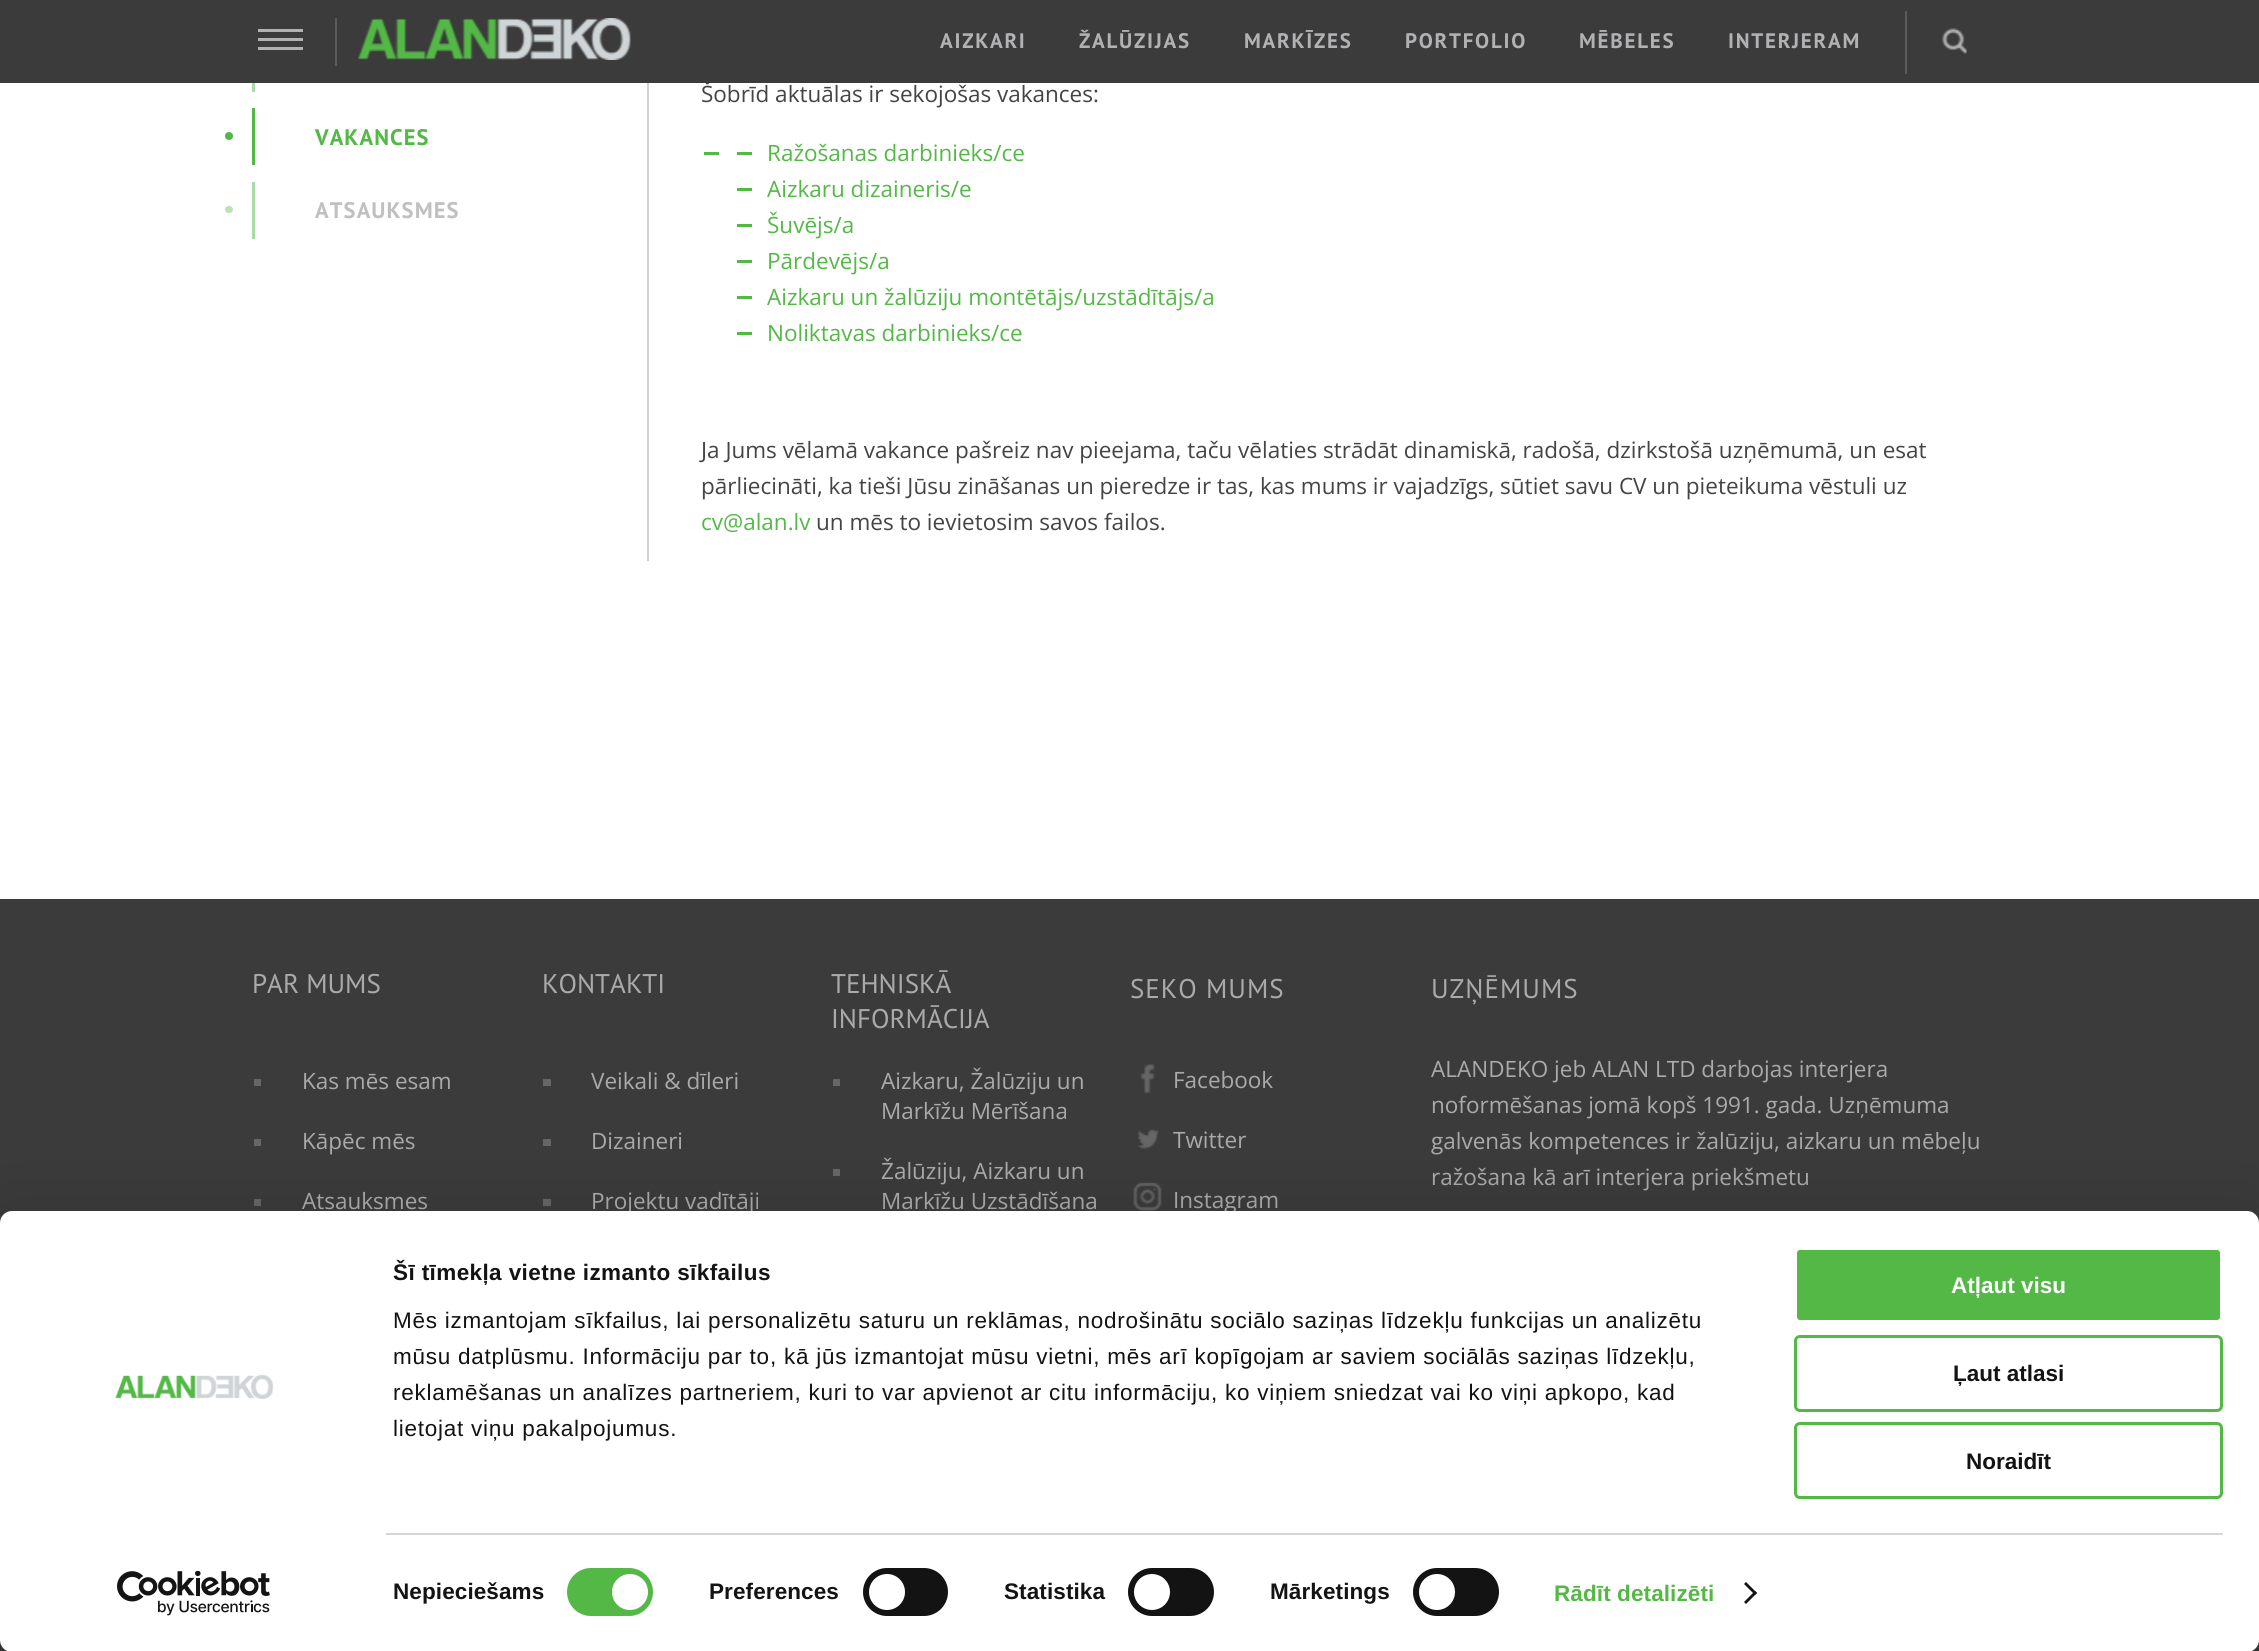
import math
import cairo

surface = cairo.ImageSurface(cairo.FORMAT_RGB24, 2259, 1651)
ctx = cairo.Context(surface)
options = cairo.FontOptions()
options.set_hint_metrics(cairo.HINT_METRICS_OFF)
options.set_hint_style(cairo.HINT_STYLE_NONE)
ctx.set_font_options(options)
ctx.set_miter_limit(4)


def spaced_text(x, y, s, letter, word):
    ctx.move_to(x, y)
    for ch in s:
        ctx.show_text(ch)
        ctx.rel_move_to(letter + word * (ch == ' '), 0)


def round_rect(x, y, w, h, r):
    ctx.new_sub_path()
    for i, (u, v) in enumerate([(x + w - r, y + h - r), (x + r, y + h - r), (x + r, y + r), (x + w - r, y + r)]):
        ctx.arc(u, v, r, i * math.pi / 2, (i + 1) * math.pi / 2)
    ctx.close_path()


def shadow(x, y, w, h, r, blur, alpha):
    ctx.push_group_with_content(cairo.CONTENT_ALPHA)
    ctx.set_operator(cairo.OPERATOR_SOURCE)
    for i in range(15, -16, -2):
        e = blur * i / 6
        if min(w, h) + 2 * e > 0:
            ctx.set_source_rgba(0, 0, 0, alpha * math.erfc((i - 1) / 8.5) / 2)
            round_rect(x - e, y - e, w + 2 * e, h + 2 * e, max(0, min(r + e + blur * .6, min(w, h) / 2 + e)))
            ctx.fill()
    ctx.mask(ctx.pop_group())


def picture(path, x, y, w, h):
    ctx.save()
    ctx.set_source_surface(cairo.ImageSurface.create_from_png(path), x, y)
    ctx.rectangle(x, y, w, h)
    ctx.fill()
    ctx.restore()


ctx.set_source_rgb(1, 1, 1)
ctx.paint()
ctx.select_font_face("Open Sans")
ctx.set_font_size(22.5)
ctx.set_source_rgb(0.267, 0.267, 0.267)
ctx.move_to(701, 102)
ctx.show_text("Šobrīd aktuālas ir sekojošas vakances:")
ctx.set_source_rgb(0.231, 0.231, 0.231)
ctx.rectangle(0, 0, 2259, 83)
ctx.fill()
ctx.set_source_rgb(0.698, 0.698, 0.706)
ctx.rectangle(258, 38, 45, 3)
ctx.fill()
ctx.rectangle(258, 29, 45, 3)
ctx.fill()
ctx.rectangle(258, 47, 45, 3)
ctx.fill()
ctx.set_source_rgb(0.357, 0.357, 0.357)
ctx.rectangle(335, 18, 2, 48)
ctx.fill()
picture("img1.png", 358, 18, 273, 42)
ctx.select_font_face("PT Sans", cairo.FONT_SLANT_NORMAL, cairo.FONT_WEIGHT_BOLD)
ctx.set_font_size(21)
ctx.set_source_rgb(0.698, 0.698, 0.706)
spaced_text(940, 48, "AIZKARI", 1.75, 0)
spaced_text(1079, 48, "ŽALŪZIJAS", 1.75, 0)
spaced_text(1244, 48, "MARKĪZES", 1.75, 0)
spaced_text(1405, 48, "PORTFOLIO", 1.75, 0)
spaced_text(1579, 48, "MĒBELES", 1.75, 0)
spaced_text(1728, 48, "INTERJERAM", 1.75, 0)
ctx.set_source_rgb(0.357, 0.357, 0.361)
ctx.rectangle(1905, 11, 2, 63)
ctx.fill()
picture("img2.png", 1941, 28, 26, 26)
ctx.set_source_rgb(0.663, 0.859, 0.643)
ctx.rectangle(252, 83, 3, 9)
ctx.fill()
ctx.set_source_rgb(0.329, 0.722, 0.278)
ctx.arc(229, 136, 4, 0, 2 * math.pi)
ctx.fill()
ctx.rectangle(252, 108, 3, 57)
ctx.fill()
ctx.set_font_size(22.5)
spaced_text(315, 145, "VAKANCES", 1.1, 0)
ctx.set_source_rgb(0.733, 0.89, 0.71)
round_rect(225, 206, 8, 7, 3.5)
ctx.fill()
ctx.set_source_rgb(0.663, 0.859, 0.643)
ctx.rectangle(252, 182, 3, 57)
ctx.fill()
ctx.set_source_rgb(0.753, 0.749, 0.757)
spaced_text(315, 218, "ATSAUKSMES", 1.1, 0)
ctx.set_source_rgb(0.82, 0.82, 0.82)
ctx.rectangle(647, 83, 2, 478)
ctx.fill()
ctx.set_source_rgb(0.329, 0.722, 0.278)
ctx.rectangle(704, 152, 15, 3)
ctx.fill()
ctx.rectangle(737, 152, 15, 3)
ctx.fill()
ctx.select_font_face("Open Sans")
ctx.move_to(767, 161)
ctx.show_text("Ražošanas darbinieks/ce")
ctx.rectangle(737, 188, 15, 3)
ctx.fill()
ctx.move_to(767, 197)
ctx.show_text("Aizkaru dizaineris/e")
ctx.rectangle(737, 224, 15, 3)
ctx.fill()
ctx.move_to(767, 233)
ctx.show_text("Šuvējs/a")
ctx.rectangle(737, 260, 15, 3)
ctx.fill()
ctx.move_to(767, 269)
ctx.show_text("Pārdevējs/a")
ctx.rectangle(737, 296, 15, 3)
ctx.fill()
ctx.move_to(767, 305)
ctx.show_text("Aizkaru un žalūziju montētājs/uzstādītājs/a")
ctx.rectangle(737, 332, 15, 3)
ctx.fill()
ctx.move_to(767, 341)
ctx.show_text("Noliktavas darbinieks/ce")
ctx.set_source_rgb(0.267, 0.267, 0.267)
ctx.move_to(701, 458)
ctx.show_text("Ja Jums vēlamā vakance pašreiz nav pieejama, taču vēlaties strādāt dinamiskā, radošā, dzirkstošā uzņēmumā, un esat")
ctx.move_to(701, 494)
ctx.show_text("pārliecināti, ka tieši Jūsu zināšanas un pieredze ir tas, kas mums ir vajadzīgs, sūtiet savu CV un pieteikuma vēstuli uz")
ctx.set_source_rgb(0.329, 0.722, 0.278)
ctx.move_to(701, 530)
ctx.show_text("cv@alan.lv")
ctx.set_source_rgb(0.267, 0.267, 0.267)
ctx.move_to(816, 530)
ctx.show_text("un mēs to ievietosim savos failos.")
ctx.set_source_rgb(0.231, 0.231, 0.231)
ctx.rectangle(0, 899, 2259, 752)
ctx.fill()
ctx.select_font_face("PT Sans")
ctx.set_font_size(27)
ctx.set_source_rgb(0.667, 0.667, 0.667)
ctx.move_to(252, 993)
ctx.show_text("PAR MUMS")
ctx.set_source_rgb(0.4, 0.4, 0.4)
ctx.rectangle(254, 1079, 7, 7)
ctx.fill()
ctx.select_font_face("Open Sans")
ctx.set_font_size(22.5)
ctx.set_source_rgb(0.667, 0.667, 0.667)
ctx.move_to(302, 1089)
ctx.show_text("Kas mēs esam")
ctx.set_source_rgb(0.4, 0.4, 0.4)
ctx.rectangle(254, 1139, 7, 7)
ctx.fill()
ctx.set_source_rgb(0.667, 0.667, 0.667)
ctx.move_to(302, 1149)
ctx.show_text("Kāpēc mēs")
ctx.set_source_rgb(0.4, 0.4, 0.4)
ctx.rectangle(254, 1199, 7, 7)
ctx.fill()
ctx.set_source_rgb(0.667, 0.667, 0.667)
ctx.move_to(302, 1209)
ctx.show_text("Atsauksmes")
ctx.select_font_face("PT Sans")
ctx.set_font_size(27)
ctx.move_to(542, 993)
ctx.show_text("KONTAKTI")
ctx.set_source_rgb(0.4, 0.4, 0.4)
ctx.rectangle(543, 1079, 8, 7)
ctx.fill()
ctx.select_font_face("Open Sans")
ctx.set_font_size(22.5)
ctx.set_source_rgb(0.667, 0.667, 0.667)
ctx.move_to(591, 1089)
ctx.show_text("Veikali & dīleri")
ctx.set_source_rgb(0.4, 0.4, 0.4)
ctx.rectangle(543, 1139, 8, 7)
ctx.fill()
ctx.set_source_rgb(0.667, 0.667, 0.667)
ctx.move_to(591, 1149)
ctx.show_text("Dizaineri")
ctx.set_source_rgb(0.4, 0.4, 0.4)
ctx.rectangle(543, 1199, 8, 7)
ctx.fill()
ctx.set_source_rgb(0.667, 0.667, 0.667)
ctx.move_to(591, 1209)
ctx.show_text("Projektu vadītāji")
ctx.select_font_face("PT Sans")
ctx.set_font_size(27)
ctx.move_to(831, 993)
ctx.show_text("TEHNISKĀ")
ctx.move_to(831, 1028)
ctx.show_text("INFORMĀCIJA")
ctx.set_source_rgb(0.4, 0.4, 0.4)
ctx.rectangle(833, 1079, 7, 7)
ctx.fill()
ctx.select_font_face("Open Sans")
ctx.set_font_size(22.5)
ctx.set_source_rgb(0.667, 0.667, 0.667)
ctx.move_to(881, 1089)
ctx.show_text("Aizkaru, Žalūziju un")
ctx.move_to(881, 1119)
ctx.show_text("Markīžu Mērīšana")
ctx.set_source_rgb(0.4, 0.4, 0.4)
ctx.rectangle(833, 1169, 7, 7)
ctx.fill()
ctx.set_source_rgb(0.667, 0.667, 0.667)
ctx.move_to(881, 1179)
ctx.show_text("Žalūziju, Aizkaru un")
ctx.move_to(881, 1209)
ctx.show_text("Markīžu Uzstādīšana")
ctx.select_font_face("PT Sans")
ctx.set_font_size(27)
spaced_text(1130, 998, "SEKO MUMS", 1, 0)
picture("img3.png", 1140, 1064, 15, 30)
ctx.select_font_face("Open Sans")
ctx.set_font_size(22.5)
ctx.move_to(1173, 1088)
ctx.show_text("Facebook")
picture("img4.png", 1138, 1129, 21, 20)
ctx.move_to(1173, 1148)
ctx.show_text("Twitter")
picture("img5.png", 1133, 1182, 29, 29)
ctx.move_to(1173, 1208)
ctx.show_text("Instagram")
ctx.select_font_face("PT Sans")
ctx.set_font_size(27)
spaced_text(1431, 998, "UZŅĒMUMS", 1, 0)
ctx.select_font_face("Open Sans")
ctx.set_font_size(22.5)
ctx.move_to(1431, 1077)
ctx.show_text("ALANDEKO jeb ALAN LTD darbojas interjera")
ctx.move_to(1431, 1113)
ctx.show_text("noformēšanas jomā kopš 1991. gada. Uzņēmuma")
ctx.move_to(1431, 1149)
ctx.show_text("galvenās kompetences ir žalūziju, aizkaru un mēbeļu")
ctx.move_to(1431, 1185)
ctx.show_text("ražošana kā arī interjera priekšmetu")
ctx.set_source_rgb(0, 0, 0)
shadow(0, 1256, 2259, 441, 12, 52.5, 0.3)
ctx.set_source_rgb(1, 1, 1)
round_rect(0, 1211, 2259, 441, 12)
ctx.fill()
picture("img6.png", 115, 1374, 158, 25)
picture("img7.png", 117, 1571, 153, 45)
ctx.select_font_face("Liberation Sans", cairo.FONT_SLANT_NORMAL, cairo.FONT_WEIGHT_BOLD)
ctx.set_source_rgb(0.078, 0.078, 0.078)
spaced_text(393, 1280, "Šī tīmekļa vietne izmanto sīkfailus", 0.4, 0)
ctx.select_font_face("Liberation Sans")
spaced_text(393, 1328, "Mēs izmantojam sīkfailus, lai personalizētu saturu un reklāmas, nodrošinātu sociālo saziņas līdzekļu funkcijas un analizētu", 0.75, 0)
spaced_text(393, 1364, "mūsu datplūsmu. Informāciju par to, kā jūs izmantojat mūsu vietni, mēs arī kopīgojam ar saviem sociālās saziņas līdzekļu,", 0.75, 0)
spaced_text(393, 1400, "reklamēšanas un analīzes partneriem, kuri to var apvienot ar citu informāciju, ko viņiem sniedzat vai ko viņi apkopo, kad", 0.75, 0)
spaced_text(393, 1436, "lietojat viņu pakalpojumus.", 0.75, 0)
ctx.set_source_rgb(0.839, 0.839, 0.839)
ctx.rectangle(386, 1533, 1837, 2)
ctx.fill()
ctx.select_font_face("Liberation Sans", cairo.FONT_SLANT_NORMAL, cairo.FONT_WEIGHT_BOLD)
ctx.set_source_rgb(0.078, 0.078, 0.078)
spaced_text(393, 1599, "Nepieciešams", 0.1, 0)
ctx.set_source_rgb(0.329, 0.722, 0.278)
round_rect(567, 1568, 86, 48, 24)
ctx.fill()
ctx.set_source_rgb(1, 1, 1)
ctx.arc(630, 1592, 18, 0, 2 * math.pi)
ctx.fill()
ctx.set_source_rgb(0.078, 0.078, 0.078)
spaced_text(709, 1599, "Preferences", 0.1, 0)
round_rect(863, 1568, 85, 48, 24)
ctx.fill()
ctx.set_source_rgb(1, 1, 1)
ctx.arc(887, 1592, 18, 0, 2 * math.pi)
ctx.fill()
ctx.set_source_rgb(0.078, 0.078, 0.078)
spaced_text(1004, 1599, "Statistika", 0.1, 0)
round_rect(1128, 1568, 86, 48, 24)
ctx.fill()
ctx.set_source_rgb(1, 1, 1)
ctx.arc(1152, 1592, 18, 0, 2 * math.pi)
ctx.fill()
ctx.set_source_rgb(0.078, 0.078, 0.078)
spaced_text(1270, 1599, "Mārketings", 0.1, 0)
round_rect(1413, 1568, 86, 48, 24)
ctx.fill()
ctx.set_source_rgb(1, 1, 1)
ctx.arc(1437, 1592, 18, 0, 2 * math.pi)
ctx.fill()
ctx.set_source_rgb(0.329, 0.722, 0.278)
spaced_text(1554, 1601, "Rādīt detalizēti", 0.1, 0)
ctx.set_source_rgb(0.078, 0.078, 0.078)
ctx.new_path()
ctx.move_to(1746, 1582)
ctx.line_to(1757, 1593)
ctx.line_to(1755, 1595)
ctx.line_to(1744, 1584)
ctx.close_path()
ctx.fill()
ctx.new_path()
ctx.move_to(1755, 1591)
ctx.line_to(1757, 1593)
ctx.line_to(1746, 1604)
ctx.line_to(1744, 1602)
ctx.close_path()
ctx.fill()
ctx.set_source_rgb(0.329, 0.722, 0.278)
round_rect(1795.5, 1248.5, 426, 73, 4.5)
ctx.fill_preserve()
ctx.set_source_rgb(1, 1, 1)
ctx.set_line_width(3)
ctx.stroke()
ctx.move_to(1951, 1293)
ctx.show_text("Atļaut visu")
round_rect(1795.5, 1336.5, 426, 74, 4.5)
ctx.set_source_rgb(0.329, 0.722, 0.278)
ctx.stroke()
ctx.set_source_rgb(0.078, 0.078, 0.078)
ctx.move_to(1953, 1381)
ctx.show_text("Ļaut atlasi")
round_rect(1795.5, 1423.5, 426, 74, 4.5)
ctx.set_source_rgb(0.329, 0.722, 0.278)
ctx.stroke()
ctx.set_source_rgb(0.078, 0.078, 0.078)
ctx.move_to(1966, 1469)
ctx.show_text("Noraidīt")
surface.write_to_png("page.png")
